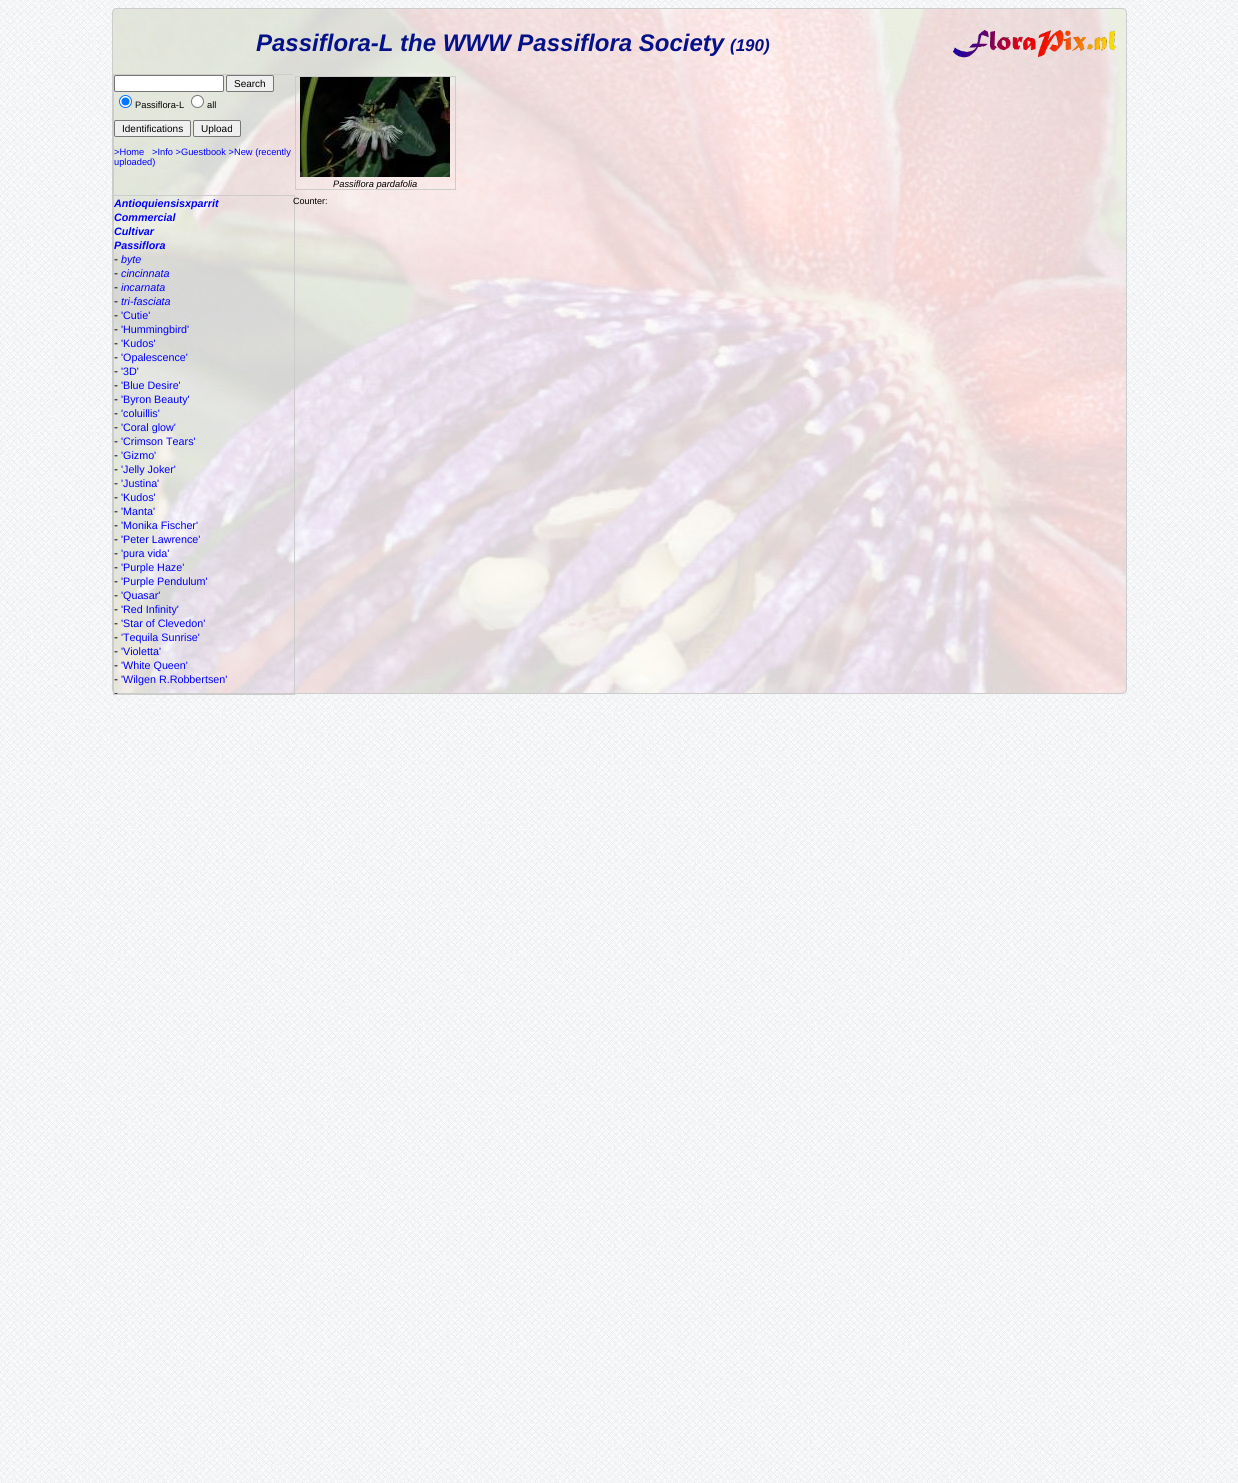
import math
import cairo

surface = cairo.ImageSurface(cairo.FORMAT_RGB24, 1238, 1483)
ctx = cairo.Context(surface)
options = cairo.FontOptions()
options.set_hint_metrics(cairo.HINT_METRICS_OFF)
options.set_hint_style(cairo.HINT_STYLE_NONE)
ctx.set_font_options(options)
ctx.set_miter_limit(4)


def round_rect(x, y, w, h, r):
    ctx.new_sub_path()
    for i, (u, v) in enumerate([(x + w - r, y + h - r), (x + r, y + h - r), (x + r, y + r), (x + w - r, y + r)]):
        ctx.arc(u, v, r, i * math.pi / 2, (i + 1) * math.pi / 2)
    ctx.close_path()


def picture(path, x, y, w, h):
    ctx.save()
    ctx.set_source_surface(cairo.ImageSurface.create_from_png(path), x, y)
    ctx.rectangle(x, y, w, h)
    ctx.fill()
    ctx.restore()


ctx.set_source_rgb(1, 1, 1)
ctx.paint()
picture("img1.png", 0, 0, 1238, 1483)
picture("img2.png", 112, 8, 1015, 686)
round_rect(112.5, 8.5, 1014, 685, 4.5)
ctx.set_source_rgb(0.8, 0.8, 0.8)
ctx.set_line_width(1)
ctx.stroke()
ctx.select_font_face("Liberation Sans", cairo.FONT_SLANT_ITALIC, cairo.FONT_WEIGHT_BOLD)
ctx.set_font_size(24)
ctx.set_source_rgb(0.016, 0.067, 0.533)
ctx.move_to(256, 51)
ctx.show_text("Passiflora-L the WWW Passiflora Society")
ctx.set_font_size(17)
ctx.move_to(730, 51)
ctx.show_text("(190)")
picture("img3.png", 952, 30, 165, 28)
ctx.save()
ctx.rectangle(113, 74, 180, 619)
ctx.clip()
ctx.rectangle(113.5, 74.5, 181, 121)
ctx.set_source_rgb(0.8, 0.8, 0.8)
ctx.stroke()
ctx.restore()
ctx.set_source_rgb(1, 1, 1)
round_rect(114.5, 75.5, 109, 16, 1.5)
ctx.fill_preserve()
ctx.set_source_rgb(0.463, 0.463, 0.463)
ctx.stroke()
ctx.set_source_rgb(0.937, 0.937, 0.937)
round_rect(226.5, 75.5, 47, 16, 1.5)
ctx.fill_preserve()
ctx.set_source_rgb(0.463, 0.463, 0.463)
ctx.stroke()
ctx.select_font_face("Liberation Sans")
ctx.set_font_size(10)
ctx.set_source_rgb(0, 0, 0)
ctx.move_to(234, 87)
ctx.show_text("Search")
ctx.set_source_rgb(1, 1, 1)
ctx.new_path()
ctx.arc(125.5, 101.5, 6, 0, 2 * math.pi)
ctx.fill_preserve()
ctx.set_source_rgb(0, 0.459, 1)
ctx.stroke()
ctx.arc(125.5, 101.5, 4, 0, 2 * math.pi)
ctx.fill()
ctx.set_font_size(9.3)
ctx.set_source_rgb(0, 0, 0)
ctx.move_to(135, 108)
ctx.show_text("Passiflora-L")
ctx.set_source_rgb(1, 1, 1)
ctx.new_path()
ctx.arc(197.5, 101.5, 6, 0, 2 * math.pi)
ctx.fill_preserve()
ctx.set_source_rgb(0.463, 0.463, 0.463)
ctx.stroke()
ctx.set_source_rgb(0, 0, 0)
ctx.move_to(207, 108)
ctx.show_text("all")
ctx.set_source_rgb(0.937, 0.937, 0.937)
round_rect(114.5, 120.5, 76, 16, 1.5)
ctx.fill_preserve()
ctx.set_source_rgb(0.463, 0.463, 0.463)
ctx.stroke()
ctx.set_font_size(10)
ctx.set_source_rgb(0, 0, 0)
ctx.move_to(122, 132)
ctx.show_text("Identifications")
ctx.set_source_rgb(0.937, 0.937, 0.937)
round_rect(193.5, 120.5, 47, 16, 1.5)
ctx.fill_preserve()
ctx.set_source_rgb(0.463, 0.463, 0.463)
ctx.stroke()
ctx.set_source_rgb(0, 0, 0)
ctx.move_to(201, 132)
ctx.show_text("Upload")
ctx.set_font_size(9.3)
ctx.set_source_rgb(0, 0, 1)
ctx.move_to(114, 155)
ctx.show_text(">Home")
ctx.move_to(152, 155)
ctx.show_text(">Info >Guestbook >New (recently")
ctx.move_to(114, 165)
ctx.show_text("uploaded)")
ctx.rectangle(113.5, 195.5, 181, 499)
ctx.set_source_rgb(0.8, 0.8, 0.8)
ctx.stroke()
ctx.select_font_face("Liberation Sans", cairo.FONT_SLANT_ITALIC, cairo.FONT_WEIGHT_BOLD)
ctx.set_font_size(10.75)
ctx.set_source_rgb(0, 0, 1)
ctx.move_to(114, 207)
ctx.show_text("Antioquiensisxparrit")
ctx.move_to(114, 221)
ctx.show_text("Commercial")
ctx.move_to(114, 235)
ctx.show_text("Cultivar")
ctx.move_to(114, 249)
ctx.show_text("Passiflora")
ctx.select_font_face("Liberation Sans")
ctx.set_font_size(12)
ctx.set_source_rgb(0, 0, 0)
ctx.move_to(114, 263)
ctx.show_text("-")
ctx.select_font_face("Liberation Sans", cairo.FONT_SLANT_ITALIC)
ctx.set_font_size(10.75)
ctx.set_source_rgb(0, 0, 1)
ctx.move_to(121, 263)
ctx.show_text("byte")
ctx.select_font_face("Liberation Sans")
ctx.set_font_size(12)
ctx.set_source_rgb(0, 0, 0)
ctx.move_to(114, 277)
ctx.show_text("-")
ctx.select_font_face("Liberation Sans", cairo.FONT_SLANT_ITALIC)
ctx.set_font_size(10.75)
ctx.set_source_rgb(0, 0, 1)
ctx.move_to(121, 277)
ctx.show_text("cincinnata")
ctx.select_font_face("Liberation Sans")
ctx.set_font_size(12)
ctx.set_source_rgb(0, 0, 0)
ctx.move_to(114, 291)
ctx.show_text("-")
ctx.select_font_face("Liberation Sans", cairo.FONT_SLANT_ITALIC)
ctx.set_font_size(10.75)
ctx.set_source_rgb(0, 0, 1)
ctx.move_to(121, 291)
ctx.show_text("incarnata")
ctx.select_font_face("Liberation Sans")
ctx.set_font_size(12)
ctx.set_source_rgb(0, 0, 0)
ctx.move_to(114, 305)
ctx.show_text("-")
ctx.select_font_face("Liberation Sans", cairo.FONT_SLANT_ITALIC)
ctx.set_font_size(10.75)
ctx.set_source_rgb(0, 0, 1)
ctx.move_to(121, 305)
ctx.show_text("tri-fasciata")
ctx.select_font_face("Liberation Sans")
ctx.set_font_size(12)
ctx.set_source_rgb(0, 0, 0)
ctx.move_to(114, 319)
ctx.show_text("-")
ctx.set_font_size(10.75)
ctx.set_source_rgb(0, 0, 1)
ctx.move_to(121, 319)
ctx.show_text("'Cutie'")
ctx.set_font_size(12)
ctx.set_source_rgb(0, 0, 0)
ctx.move_to(114, 333)
ctx.show_text("-")
ctx.set_font_size(10.75)
ctx.set_source_rgb(0, 0, 1)
ctx.move_to(121, 333)
ctx.show_text("'Hummingbird'")
ctx.set_font_size(12)
ctx.set_source_rgb(0, 0, 0)
ctx.move_to(114, 347)
ctx.show_text("-")
ctx.set_font_size(10.75)
ctx.set_source_rgb(0, 0, 1)
ctx.move_to(121, 347)
ctx.show_text("'Kudos'")
ctx.set_font_size(12)
ctx.set_source_rgb(0, 0, 0)
ctx.move_to(114, 361)
ctx.show_text("-")
ctx.set_font_size(10.75)
ctx.set_source_rgb(0, 0, 1)
ctx.move_to(121, 361)
ctx.show_text("'Opalescence'")
ctx.set_font_size(12)
ctx.set_source_rgb(0, 0, 0)
ctx.move_to(114, 375)
ctx.show_text("-")
ctx.set_font_size(10.75)
ctx.set_source_rgb(0, 0, 1)
ctx.move_to(121, 375)
ctx.show_text("'3D'")
ctx.set_font_size(12)
ctx.set_source_rgb(0, 0, 0)
ctx.move_to(114, 389)
ctx.show_text("-")
ctx.set_font_size(10.75)
ctx.set_source_rgb(0, 0, 1)
ctx.move_to(121, 389)
ctx.show_text("'Blue Desire'")
ctx.set_font_size(12)
ctx.set_source_rgb(0, 0, 0)
ctx.move_to(114, 403)
ctx.show_text("-")
ctx.set_font_size(10.75)
ctx.set_source_rgb(0, 0, 1)
ctx.move_to(121, 403)
ctx.show_text("'Byron Beauty'")
ctx.set_font_size(12)
ctx.set_source_rgb(0, 0, 0)
ctx.move_to(114, 417)
ctx.show_text("-")
ctx.set_font_size(10.75)
ctx.set_source_rgb(0, 0, 1)
ctx.move_to(121, 417)
ctx.show_text("'coluillis'")
ctx.set_font_size(12)
ctx.set_source_rgb(0, 0, 0)
ctx.move_to(114, 431)
ctx.show_text("-")
ctx.set_font_size(10.75)
ctx.set_source_rgb(0, 0, 1)
ctx.move_to(121, 431)
ctx.show_text("'Coral glow'")
ctx.set_font_size(12)
ctx.set_source_rgb(0, 0, 0)
ctx.move_to(114, 445)
ctx.show_text("-")
ctx.set_font_size(10.75)
ctx.set_source_rgb(0, 0, 1)
ctx.move_to(121, 445)
ctx.show_text("'Crimson Tears'")
ctx.set_font_size(12)
ctx.set_source_rgb(0, 0, 0)
ctx.move_to(114, 459)
ctx.show_text("-")
ctx.set_font_size(10.75)
ctx.set_source_rgb(0, 0, 1)
ctx.move_to(121, 459)
ctx.show_text("'Gizmo'")
ctx.set_font_size(12)
ctx.set_source_rgb(0, 0, 0)
ctx.move_to(114, 473)
ctx.show_text("-")
ctx.set_font_size(10.75)
ctx.set_source_rgb(0, 0, 1)
ctx.move_to(121, 473)
ctx.show_text("'Jelly Joker'")
ctx.set_font_size(12)
ctx.set_source_rgb(0, 0, 0)
ctx.move_to(114, 487)
ctx.show_text("-")
ctx.set_font_size(10.75)
ctx.set_source_rgb(0, 0, 1)
ctx.move_to(121, 487)
ctx.show_text("'Justina'")
ctx.set_font_size(12)
ctx.set_source_rgb(0, 0, 0)
ctx.move_to(114, 501)
ctx.show_text("-")
ctx.set_font_size(10.75)
ctx.set_source_rgb(0, 0, 1)
ctx.move_to(121, 501)
ctx.show_text("'Kudos'")
ctx.set_font_size(12)
ctx.set_source_rgb(0, 0, 0)
ctx.move_to(114, 515)
ctx.show_text("-")
ctx.set_font_size(10.75)
ctx.set_source_rgb(0, 0, 1)
ctx.move_to(121, 515)
ctx.show_text("'Manta'")
ctx.set_font_size(12)
ctx.set_source_rgb(0, 0, 0)
ctx.move_to(114, 529)
ctx.show_text("-")
ctx.set_font_size(10.75)
ctx.set_source_rgb(0, 0, 1)
ctx.move_to(121, 529)
ctx.show_text("'Monika Fischer'")
ctx.set_font_size(12)
ctx.set_source_rgb(0, 0, 0)
ctx.move_to(114, 543)
ctx.show_text("-")
ctx.set_font_size(10.75)
ctx.set_source_rgb(0, 0, 1)
ctx.move_to(121, 543)
ctx.show_text("'Peter Lawrence'")
ctx.set_font_size(12)
ctx.set_source_rgb(0, 0, 0)
ctx.move_to(114, 557)
ctx.show_text("-")
ctx.set_font_size(10.75)
ctx.set_source_rgb(0, 0, 1)
ctx.move_to(121, 557)
ctx.show_text("'pura vida'")
ctx.set_font_size(12)
ctx.set_source_rgb(0, 0, 0)
ctx.move_to(114, 571)
ctx.show_text("-")
ctx.set_font_size(10.75)
ctx.set_source_rgb(0, 0, 1)
ctx.move_to(121, 571)
ctx.show_text("'Purple Haze'")
ctx.set_font_size(12)
ctx.set_source_rgb(0, 0, 0)
ctx.move_to(114, 585)
ctx.show_text("-")
ctx.set_font_size(10.75)
ctx.set_source_rgb(0, 0, 1)
ctx.move_to(121, 585)
ctx.show_text("'Purple Pendulum'")
ctx.set_font_size(12)
ctx.set_source_rgb(0, 0, 0)
ctx.move_to(114, 599)
ctx.show_text("-")
ctx.set_font_size(10.75)
ctx.set_source_rgb(0, 0, 1)
ctx.move_to(121, 599)
ctx.show_text("'Quasar'")
ctx.set_font_size(12)
ctx.set_source_rgb(0, 0, 0)
ctx.move_to(114, 613)
ctx.show_text("-")
ctx.set_font_size(10.75)
ctx.set_source_rgb(0, 0, 1)
ctx.move_to(121, 613)
ctx.show_text("'Red Infinity'")
ctx.set_font_size(12)
ctx.set_source_rgb(0, 0, 0)
ctx.move_to(114, 627)
ctx.show_text("-")
ctx.set_font_size(10.75)
ctx.set_source_rgb(0, 0, 1)
ctx.move_to(121, 627)
ctx.show_text("'Star of Clevedon'")
ctx.set_font_size(12)
ctx.set_source_rgb(0, 0, 0)
ctx.move_to(114, 641)
ctx.show_text("-")
ctx.set_font_size(10.75)
ctx.set_source_rgb(0, 0, 1)
ctx.move_to(121, 641)
ctx.show_text("'Tequila Sunrise'")
ctx.set_font_size(12)
ctx.set_source_rgb(0, 0, 0)
ctx.move_to(114, 655)
ctx.show_text("-")
ctx.set_font_size(10.75)
ctx.set_source_rgb(0, 0, 1)
ctx.move_to(121, 655)
ctx.show_text("'Violetta'")
ctx.set_font_size(12)
ctx.set_source_rgb(0, 0, 0)
ctx.move_to(114, 669)
ctx.show_text("-")
ctx.set_font_size(10.75)
ctx.set_source_rgb(0, 0, 1)
ctx.move_to(121, 669)
ctx.show_text("'White Queen'")
ctx.set_font_size(12)
ctx.set_source_rgb(0, 0, 0)
ctx.move_to(114, 683)
ctx.show_text("-")
ctx.set_font_size(10.75)
ctx.set_source_rgb(0, 0, 1)
ctx.move_to(121, 683)
ctx.show_text("'Wilgen R.Robbertsen'")
ctx.save()
ctx.rectangle(114, 196, 180, 498)
ctx.clip()
ctx.set_font_size(12)
ctx.set_source_rgb(0, 0, 0)
ctx.move_to(114, 697)
ctx.show_text("-")
ctx.restore()
ctx.rectangle(295.5, 76.5, 160, 113)
ctx.set_source_rgb(0.8, 0.8, 0.8)
ctx.stroke()
picture("img4.png", 300, 77, 150, 100)
ctx.select_font_face("Liberation Sans", cairo.FONT_SLANT_ITALIC)
ctx.set_font_size(9.3)
ctx.set_source_rgb(0, 0, 0)
ctx.move_to(333, 187)
ctx.show_text("Passiflora pardafolia")
ctx.select_font_face("Liberation Sans")
ctx.set_font_size(9)
ctx.move_to(293, 204)
ctx.show_text("Counter:")
surface.write_to_png("page.png")
